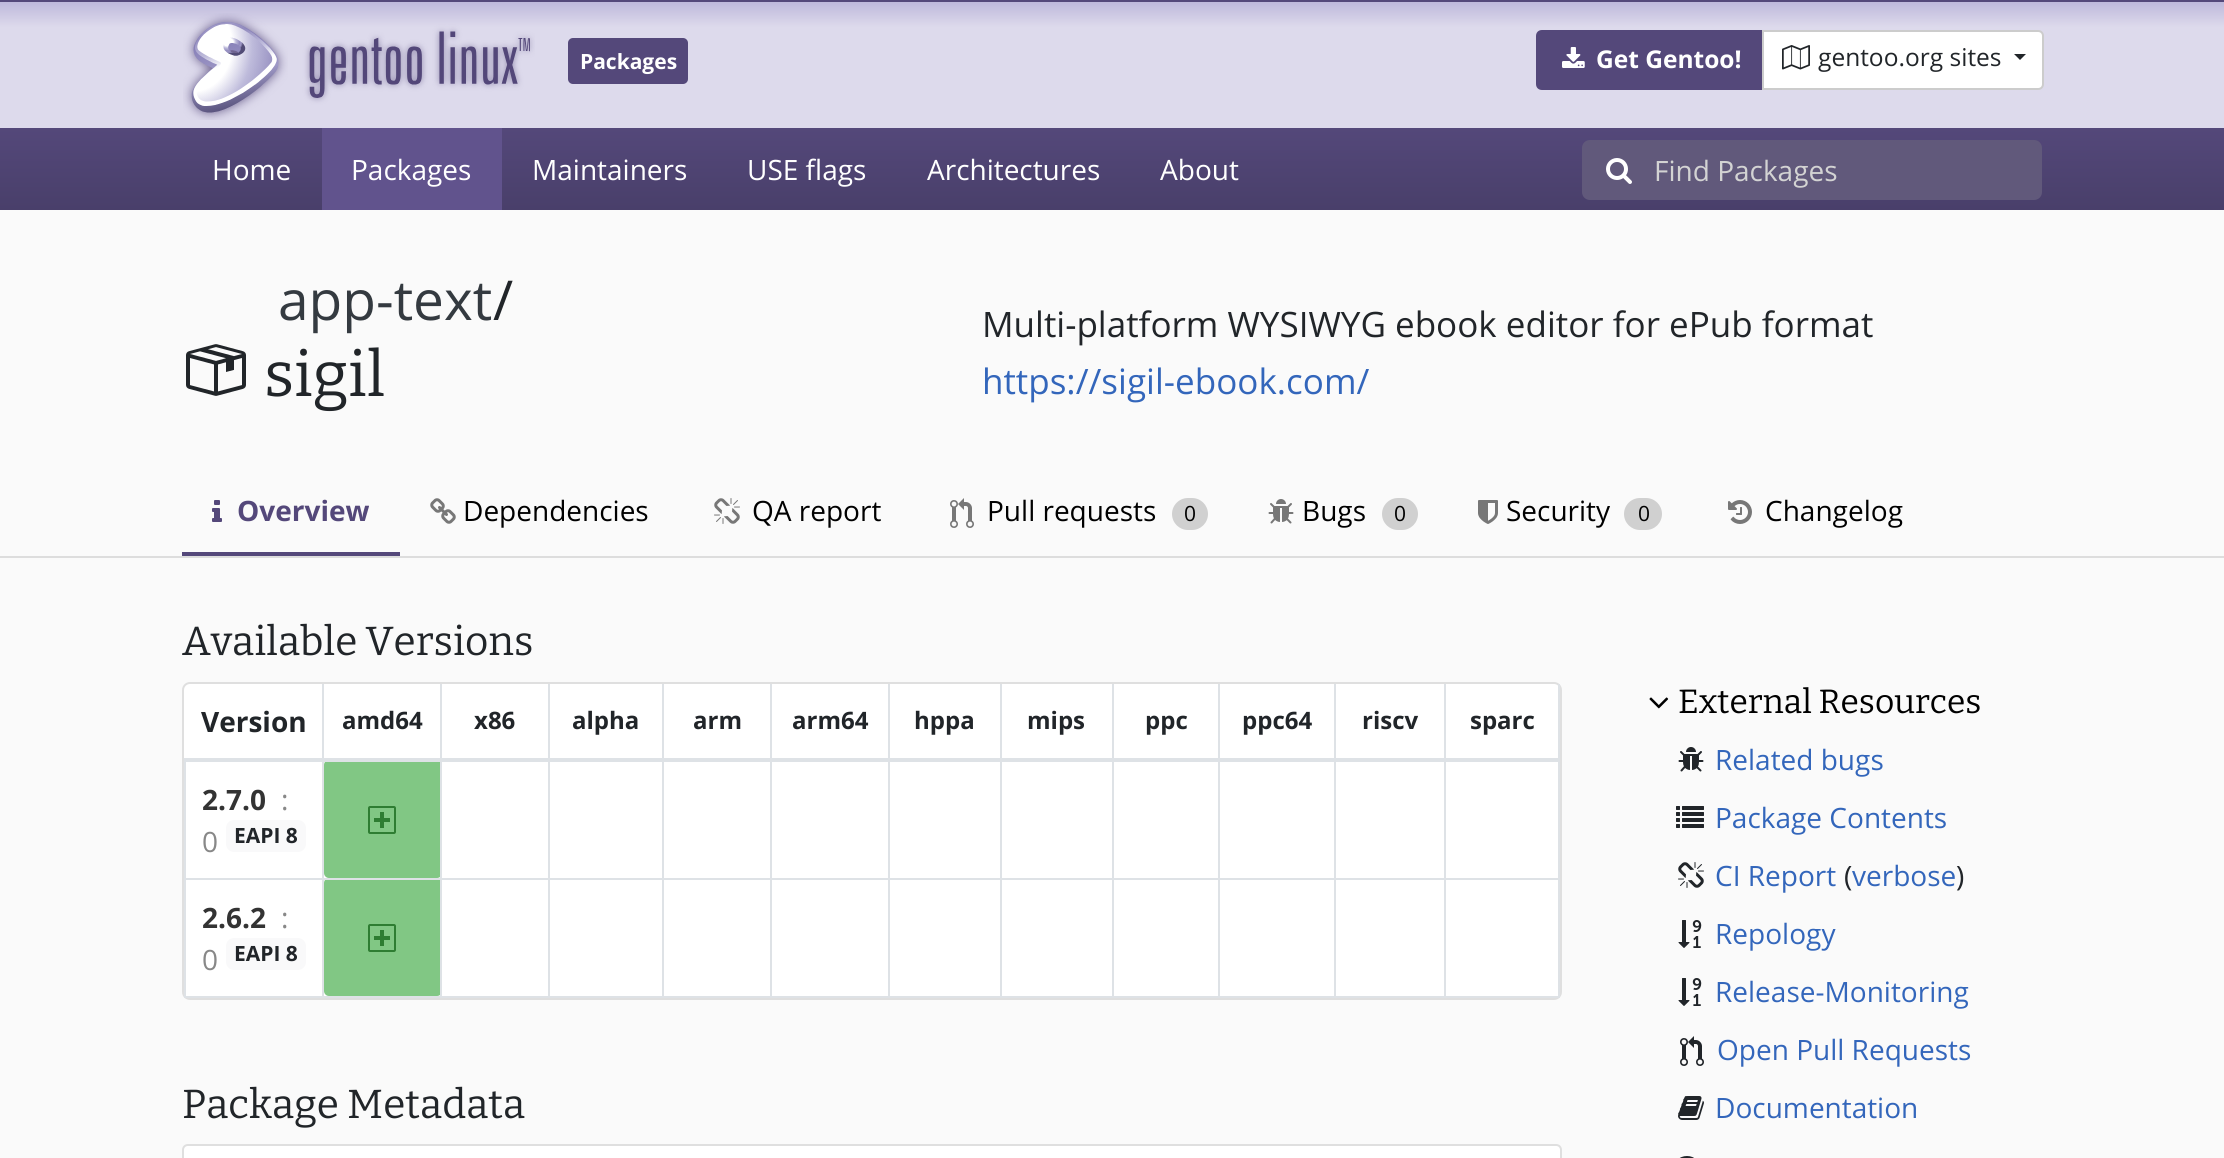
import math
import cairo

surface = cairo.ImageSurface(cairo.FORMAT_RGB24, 2224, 1158)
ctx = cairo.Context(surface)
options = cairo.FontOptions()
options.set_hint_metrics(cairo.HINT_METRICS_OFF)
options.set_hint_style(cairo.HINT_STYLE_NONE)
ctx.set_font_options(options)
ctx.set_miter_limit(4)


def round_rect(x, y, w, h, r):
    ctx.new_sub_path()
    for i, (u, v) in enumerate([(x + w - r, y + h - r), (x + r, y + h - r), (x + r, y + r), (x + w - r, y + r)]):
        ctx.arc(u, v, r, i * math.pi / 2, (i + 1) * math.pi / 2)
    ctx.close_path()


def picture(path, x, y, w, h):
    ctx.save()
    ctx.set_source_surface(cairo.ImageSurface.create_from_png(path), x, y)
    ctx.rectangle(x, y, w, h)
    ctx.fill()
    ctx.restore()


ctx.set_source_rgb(0.98, 0.98, 0.98)
ctx.paint()
ctx.set_source_rgb(0.329, 0.282, 0.478)
ctx.rectangle(0, 0, 2224, 2)
ctx.fill()
gradient = cairo.LinearGradient(1112, 2, 1112, 128)
gradient.add_color_stop_rgba(0, 0.745, 0.722, 0.859, 1)
gradient.add_color_stop_rgba(0.2, 0.867, 0.855, 0.925, 1)
ctx.set_source(gradient)
ctx.rectangle(0, 2, 2224, 126)
ctx.fill()
picture("img1.png", 183, 13, 352, 107)
ctx.set_source_rgb(0.329, 0.282, 0.478)
round_rect(568, 38, 120, 46, 5)
ctx.fill()
ctx.select_font_face("Open Sans", cairo.FONT_SLANT_NORMAL, cairo.FONT_WEIGHT_BOLD)
ctx.set_font_size(21)
ctx.set_source_rgb(1, 1, 1)
ctx.move_to(580, 69)
ctx.show_text("Packages")
ctx.set_source_rgb(0.329, 0.282, 0.478)
ctx.new_path()
ctx.move_to(1542, 31)
ctx.line_to(1763, 31)
ctx.line_to(1763, 89)
ctx.line_to(1542, 89)
ctx.curve_to(1539, 89, 1537, 87, 1537, 84)
ctx.line_to(1537, 36)
ctx.curve_to(1537, 33, 1539, 31, 1542, 31)
ctx.close_path()
ctx.fill_preserve()
ctx.stroke()
picture("img2.png", 1562, 47, 23, 21)
ctx.set_font_size(24.5)
ctx.set_source_rgb(1, 1, 1)
ctx.move_to(1596, 68)
ctx.show_text("Get Gentoo!")
ctx.new_path()
ctx.move_to(1763, 31)
ctx.line_to(2038, 31)
ctx.curve_to(2041, 31, 2043, 33, 2043, 36)
ctx.line_to(2043, 84)
ctx.curve_to(2043, 87, 2041, 89, 2038, 89)
ctx.line_to(1763, 89)
ctx.close_path()
ctx.fill_preserve()
ctx.set_source_rgb(0.8, 0.8, 0.8)
ctx.stroke()
picture("img3.png", 1782, 45, 28, 25)
ctx.select_font_face("Open Sans")
ctx.set_source_rgb(0.129, 0.145, 0.161)
ctx.move_to(1818, 66)
ctx.show_text("gentoo.org sites")
ctx.new_path()
ctx.move_to(2014, 54)
ctx.line_to(2026, 54)
ctx.line_to(2020, 60)
ctx.close_path()
ctx.fill()
gradient = cairo.LinearGradient(1112, 128, 1112, 210)
gradient.add_color_stop_rgba(0, 0.329, 0.282, 0.478, 1)
gradient.add_color_stop_rgba(1, 0.286, 0.247, 0.416, 1)
ctx.set_source(gradient)
ctx.rectangle(0, 128, 2224, 82)
ctx.fill()
ctx.set_font_size(28)
ctx.set_source_rgb(1, 1, 1)
ctx.move_to(212, 180)
ctx.show_text("Home")
ctx.set_source_rgb(0.38, 0.325, 0.553)
ctx.rectangle(322, 128, 180, 82)
ctx.fill()
ctx.set_source_rgb(1, 1, 1)
ctx.move_to(351, 180)
ctx.show_text("Packages")
ctx.move_to(532, 180)
ctx.show_text("Maintainers")
ctx.move_to(747, 180)
ctx.show_text("USE flags")
ctx.move_to(927, 180)
ctx.show_text("Architectures")
ctx.move_to(1160, 180)
ctx.show_text("About")
ctx.set_source_rgb(0.38, 0.349, 0.482)
ctx.new_path()
ctx.move_to(1590, 140)
ctx.line_to(1656, 140)
ctx.line_to(1656, 200)
ctx.line_to(1590, 200)
ctx.curve_to(1585.5, 200, 1582, 196.5, 1582, 192)
ctx.line_to(1582, 148)
ctx.curve_to(1582, 143.5, 1585.5, 140, 1590, 140)
ctx.close_path()
ctx.fill()
picture("img4.png", 1606, 158, 26, 26)
ctx.new_path()
ctx.move_to(1654, 140)
ctx.line_to(2034, 140)
ctx.curve_to(2038.5, 140, 2042, 143.5, 2042, 148)
ctx.line_to(2042, 192)
ctx.curve_to(2042, 196.5, 2038.5, 200, 2034, 200)
ctx.line_to(1654, 200)
ctx.close_path()
ctx.fill()
ctx.set_source_rgb(0.827, 0.827, 0.827)
ctx.move_to(1654, 181)
ctx.show_text("Find Packages")
ctx.set_font_size(55)
ctx.set_source_rgb(0.204, 0.227, 0.251)
ctx.move_to(278, 320)
ctx.show_text("app-text")
ctx.set_source_rgb(0.129, 0.145, 0.161)
ctx.move_to(493, 320)
ctx.show_text("/")
picture("img5.png", 186, 344, 60, 52)
ctx.select_font_face("Bitter")
ctx.set_font_size(63)
ctx.move_to(264, 396)
ctx.show_text("sigil")
ctx.select_font_face("Open Sans")
ctx.set_font_size(35)
ctx.move_to(982, 337)
ctx.show_text("Multi-platform WYSIWYG ebook editor for ePub format")
ctx.set_source_rgb(0.2, 0.4, 0.733)
ctx.move_to(982, 394)
ctx.show_text("https://sigil-ebook.com/")
ctx.set_source_rgb(0.329, 0.282, 0.478)
ctx.rectangle(182, 552, 218, 4)
ctx.fill()
picture("img6.png", 212, 500, 10, 22)
ctx.select_font_face("Open Sans", cairo.FONT_SLANT_NORMAL, cairo.FONT_WEIGHT_BOLD)
ctx.set_font_size(28)
ctx.move_to(237, 521)
ctx.show_text("Overview")
picture("img7.png", 430, 498, 26, 26)
ctx.select_font_face("Open Sans")
ctx.set_source_rgb(0, 0, 0)
ctx.move_to(463, 521)
ctx.show_text("Dependencies")
picture("img8.png", 714, 498, 26, 26)
ctx.move_to(752, 521)
ctx.show_text("QA report")
picture("img9.png", 950, 498, 24, 30)
ctx.move_to(987, 521)
ctx.show_text("Pull requests")
ctx.set_source_rgb(0.816, 0.816, 0.816)
round_rect(1172, 498, 36, 32, 16)
ctx.fill()
ctx.set_font_size(21)
ctx.set_source_rgb(0, 0, 0)
ctx.move_to(1184, 521)
ctx.show_text("0")
picture("img10.png", 1268, 499, 26, 25)
ctx.set_font_size(28)
ctx.move_to(1302, 521)
ctx.show_text("Bugs")
ctx.set_source_rgb(0.816, 0.816, 0.816)
round_rect(1382, 498, 36, 32, 16)
ctx.fill()
ctx.set_font_size(21)
ctx.set_source_rgb(0, 0, 0)
ctx.move_to(1394, 521)
ctx.show_text("0")
picture("img11.png", 1478, 500, 20, 24)
ctx.set_font_size(28)
ctx.move_to(1506, 521)
ctx.show_text("Security")
ctx.set_source_rgb(0.816, 0.816, 0.816)
round_rect(1624, 498, 38, 32, 16)
ctx.fill()
ctx.set_font_size(21)
ctx.set_source_rgb(0, 0, 0)
ctx.move_to(1638, 521)
ctx.show_text("0")
picture("img12.png", 1728, 500, 24, 24)
ctx.set_font_size(28)
ctx.move_to(1765, 521)
ctx.show_text("Changelog")
ctx.set_source_rgb(0.867, 0.867, 0.867)
ctx.rectangle(0, 556, 2224, 2)
ctx.fill()
ctx.select_font_face("Bitter")
ctx.set_font_size(40.5)
ctx.set_source_rgb(0.129, 0.145, 0.161)
ctx.move_to(182, 655)
ctx.show_text("Available Versions")
ctx.set_source_rgb(1, 1, 1)
round_rect(183, 683, 1378, 316, 7)
ctx.fill_preserve()
ctx.set_source_rgb(0.875, 0.875, 0.875)
ctx.stroke()
ctx.select_font_face("Open Sans", cairo.FONT_SLANT_NORMAL, cairo.FONT_WEIGHT_BOLD)
ctx.set_font_size(28)
ctx.set_source_rgb(0.129, 0.145, 0.161)
ctx.move_to(201, 732)
ctx.show_text("Version")
ctx.set_font_size(24)
ctx.move_to(342, 729)
ctx.show_text("amd64")
ctx.move_to(474, 729)
ctx.show_text("x86")
ctx.move_to(572, 729)
ctx.show_text("alpha")
ctx.move_to(693, 729)
ctx.show_text("arm")
ctx.move_to(792, 729)
ctx.show_text("arm64")
ctx.move_to(914, 729)
ctx.show_text("hppa")
ctx.move_to(1027, 729)
ctx.show_text("mips")
ctx.move_to(1145, 729)
ctx.show_text("ppc")
ctx.move_to(1242, 729)
ctx.show_text("ppc64")
ctx.move_to(1362, 729)
ctx.show_text("riscv")
ctx.set_source_rgb(0.506, 0.78, 0.518)
round_rect(324, 760, 118, 118, 5)
ctx.fill()
round_rect(324, 878, 118, 118, 5)
ctx.fill()
ctx.set_source_rgb(0.871, 0.886, 0.902)
ctx.rectangle(1444, 878, 116, 2)
ctx.fill()
ctx.rectangle(1558, 684, 2, 314)
ctx.fill()
ctx.rectangle(1444, 996, 116, 2)
ctx.fill()
ctx.rectangle(1444, 878, 2, 120)
ctx.fill()
ctx.rectangle(1334, 878, 112, 2)
ctx.fill()
ctx.rectangle(1334, 996, 112, 2)
ctx.fill()
ctx.rectangle(1334, 878, 2, 120)
ctx.fill()
ctx.rectangle(1218, 878, 118, 2)
ctx.fill()
ctx.rectangle(1218, 996, 118, 2)
ctx.fill()
ctx.rectangle(1218, 878, 2, 120)
ctx.fill()
ctx.rectangle(1112, 878, 108, 2)
ctx.fill()
ctx.rectangle(1112, 996, 108, 2)
ctx.fill()
ctx.rectangle(1112, 878, 2, 120)
ctx.fill()
ctx.rectangle(1000, 878, 114, 2)
ctx.fill()
ctx.rectangle(1000, 996, 114, 2)
ctx.fill()
ctx.rectangle(1000, 878, 2, 120)
ctx.fill()
ctx.rectangle(888, 878, 114, 2)
ctx.fill()
ctx.rectangle(888, 996, 114, 2)
ctx.fill()
ctx.rectangle(888, 878, 2, 120)
ctx.fill()
ctx.rectangle(770, 878, 120, 2)
ctx.fill()
ctx.rectangle(770, 996, 120, 2)
ctx.fill()
ctx.rectangle(770, 878, 2, 120)
ctx.fill()
ctx.rectangle(662, 878, 110, 2)
ctx.fill()
ctx.rectangle(662, 996, 110, 2)
ctx.fill()
ctx.rectangle(662, 878, 2, 120)
ctx.fill()
ctx.rectangle(548, 878, 116, 2)
ctx.fill()
ctx.rectangle(548, 996, 116, 2)
ctx.fill()
ctx.rectangle(548, 878, 2, 120)
ctx.fill()
ctx.rectangle(440, 878, 110, 2)
ctx.fill()
ctx.rectangle(440, 996, 110, 2)
ctx.fill()
ctx.rectangle(440, 878, 2, 120)
ctx.fill()
ctx.rectangle(322, 878, 120, 2)
ctx.fill()
ctx.rectangle(322, 996, 120, 2)
ctx.fill()
ctx.rectangle(322, 878, 2, 120)
ctx.fill()
ctx.rectangle(184, 878, 140, 2)
ctx.fill()
ctx.rectangle(322, 684, 2, 196)
ctx.fill()
ctx.rectangle(440, 684, 2, 196)
ctx.fill()
ctx.rectangle(548, 684, 2, 196)
ctx.fill()
ctx.rectangle(662, 684, 2, 196)
ctx.fill()
ctx.rectangle(770, 684, 2, 196)
ctx.fill()
ctx.rectangle(888, 684, 2, 196)
ctx.fill()
ctx.rectangle(1000, 684, 2, 196)
ctx.fill()
ctx.rectangle(1112, 684, 2, 196)
ctx.fill()
ctx.rectangle(1218, 684, 2, 196)
ctx.fill()
ctx.rectangle(1334, 684, 2, 196)
ctx.fill()
ctx.rectangle(1444, 684, 2, 196)
ctx.fill()
ctx.rectangle(184, 996, 140, 2)
ctx.fill()
ctx.rectangle(184, 758, 2, 240)
ctx.fill()
ctx.rectangle(184, 758, 1376, 4)
ctx.fill()
ctx.set_source_rgb(0.129, 0.145, 0.161)
ctx.move_to(1470, 729)
ctx.show_text("sparc")
picture("img13.png", 368, 806, 28, 28)
ctx.set_font_size(28)
ctx.set_source_rgb(0.2, 0.2, 0.2)
ctx.move_to(202, 810)
ctx.show_text("2.7.0")
ctx.select_font_face("Open Sans")
ctx.set_source_rgb(0.533, 0.533, 0.533)
ctx.move_to(281, 810)
ctx.show_text(":")
ctx.move_to(202, 852)
ctx.show_text("0")
ctx.set_source_rgb(0.973, 0.976, 0.98)
round_rect(226, 820, 80, 32, 8)
ctx.fill()
ctx.select_font_face("Open Sans", cairo.FONT_SLANT_NORMAL, cairo.FONT_WEIGHT_BOLD)
ctx.set_font_size(21)
ctx.set_source_rgb(0.129, 0.145, 0.161)
ctx.move_to(234, 843)
ctx.show_text("EAPI 8")
ctx.set_font_size(28)
ctx.set_source_rgb(0.2, 0.2, 0.2)
ctx.move_to(202, 928)
ctx.show_text("2.6.2")
ctx.select_font_face("Open Sans")
ctx.set_source_rgb(0.533, 0.533, 0.533)
ctx.move_to(281, 928)
ctx.show_text(":")
ctx.move_to(202, 970)
ctx.show_text("0")
ctx.set_source_rgb(0.973, 0.976, 0.98)
round_rect(226, 938, 80, 32, 8)
ctx.fill()
ctx.select_font_face("Open Sans", cairo.FONT_SLANT_NORMAL, cairo.FONT_WEIGHT_BOLD)
ctx.set_font_size(21)
ctx.set_source_rgb(0.129, 0.145, 0.161)
ctx.move_to(234, 961)
ctx.show_text("EAPI 8")
picture("img13.png", 368, 924, 28, 28)
ctx.select_font_face("Bitter")
ctx.set_font_size(40.5)
ctx.move_to(182, 1118)
ctx.show_text("Package Metadata")
ctx.set_source_rgb(1, 1, 1)
ctx.new_path()
ctx.move_to(188, 1145)
ctx.line_to(1556, 1145)
ctx.curve_to(1559, 1145, 1561, 1147, 1561, 1150)
ctx.line_to(1561, 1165)
ctx.line_to(183, 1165)
ctx.line_to(183, 1150)
ctx.curve_to(183, 1147, 185, 1145, 188, 1145)
ctx.close_path()
ctx.fill_preserve()
ctx.set_source_rgb(0.875, 0.875, 0.875)
ctx.stroke()
picture("img14.png", 1649, 697, 20, 12)
ctx.set_font_size(33.5)
ctx.set_source_rgb(0, 0, 0)
ctx.move_to(1678, 713)
ctx.show_text("External Resources")
picture("img15.png", 1678, 747, 26, 25)
ctx.select_font_face("Open Sans")
ctx.set_font_size(28)
ctx.set_source_rgb(0.2, 0.4, 0.733)
ctx.move_to(1715, 770)
ctx.show_text("Related bugs")
picture("img16.png", 1676, 806, 28, 22)
ctx.move_to(1715, 828)
ctx.show_text("Package Contents")
picture("img17.png", 1678, 862, 26, 26)
ctx.move_to(1715, 886)
ctx.show_text("CI Report")
ctx.set_source_rgb(0.129, 0.145, 0.161)
ctx.move_to(1844, 886)
ctx.show_text("(")
ctx.set_source_rgb(0.2, 0.4, 0.733)
ctx.move_to(1852, 886)
ctx.show_text("verbose")
ctx.set_source_rgb(0.129, 0.145, 0.161)
ctx.move_to(1956, 886)
ctx.show_text(")")
picture("img18.png", 1678, 920, 24, 28)
ctx.set_source_rgb(0.2, 0.4, 0.733)
ctx.move_to(1715, 944)
ctx.show_text("Repology")
picture("img18.png", 1678, 978, 24, 28)
ctx.move_to(1715, 1002)
ctx.show_text("Release-Monitoring")
picture("img19.png", 1680, 1036, 24, 30)
ctx.move_to(1717, 1060)
ctx.show_text("Open Pull Requests")
picture("img20.png", 1678, 1096, 26, 24)
ctx.move_to(1715, 1118)
ctx.show_text("Documentation")
picture("img21.png", 1679, 1156, 15, 2)
surface.write_to_png("page.png")
